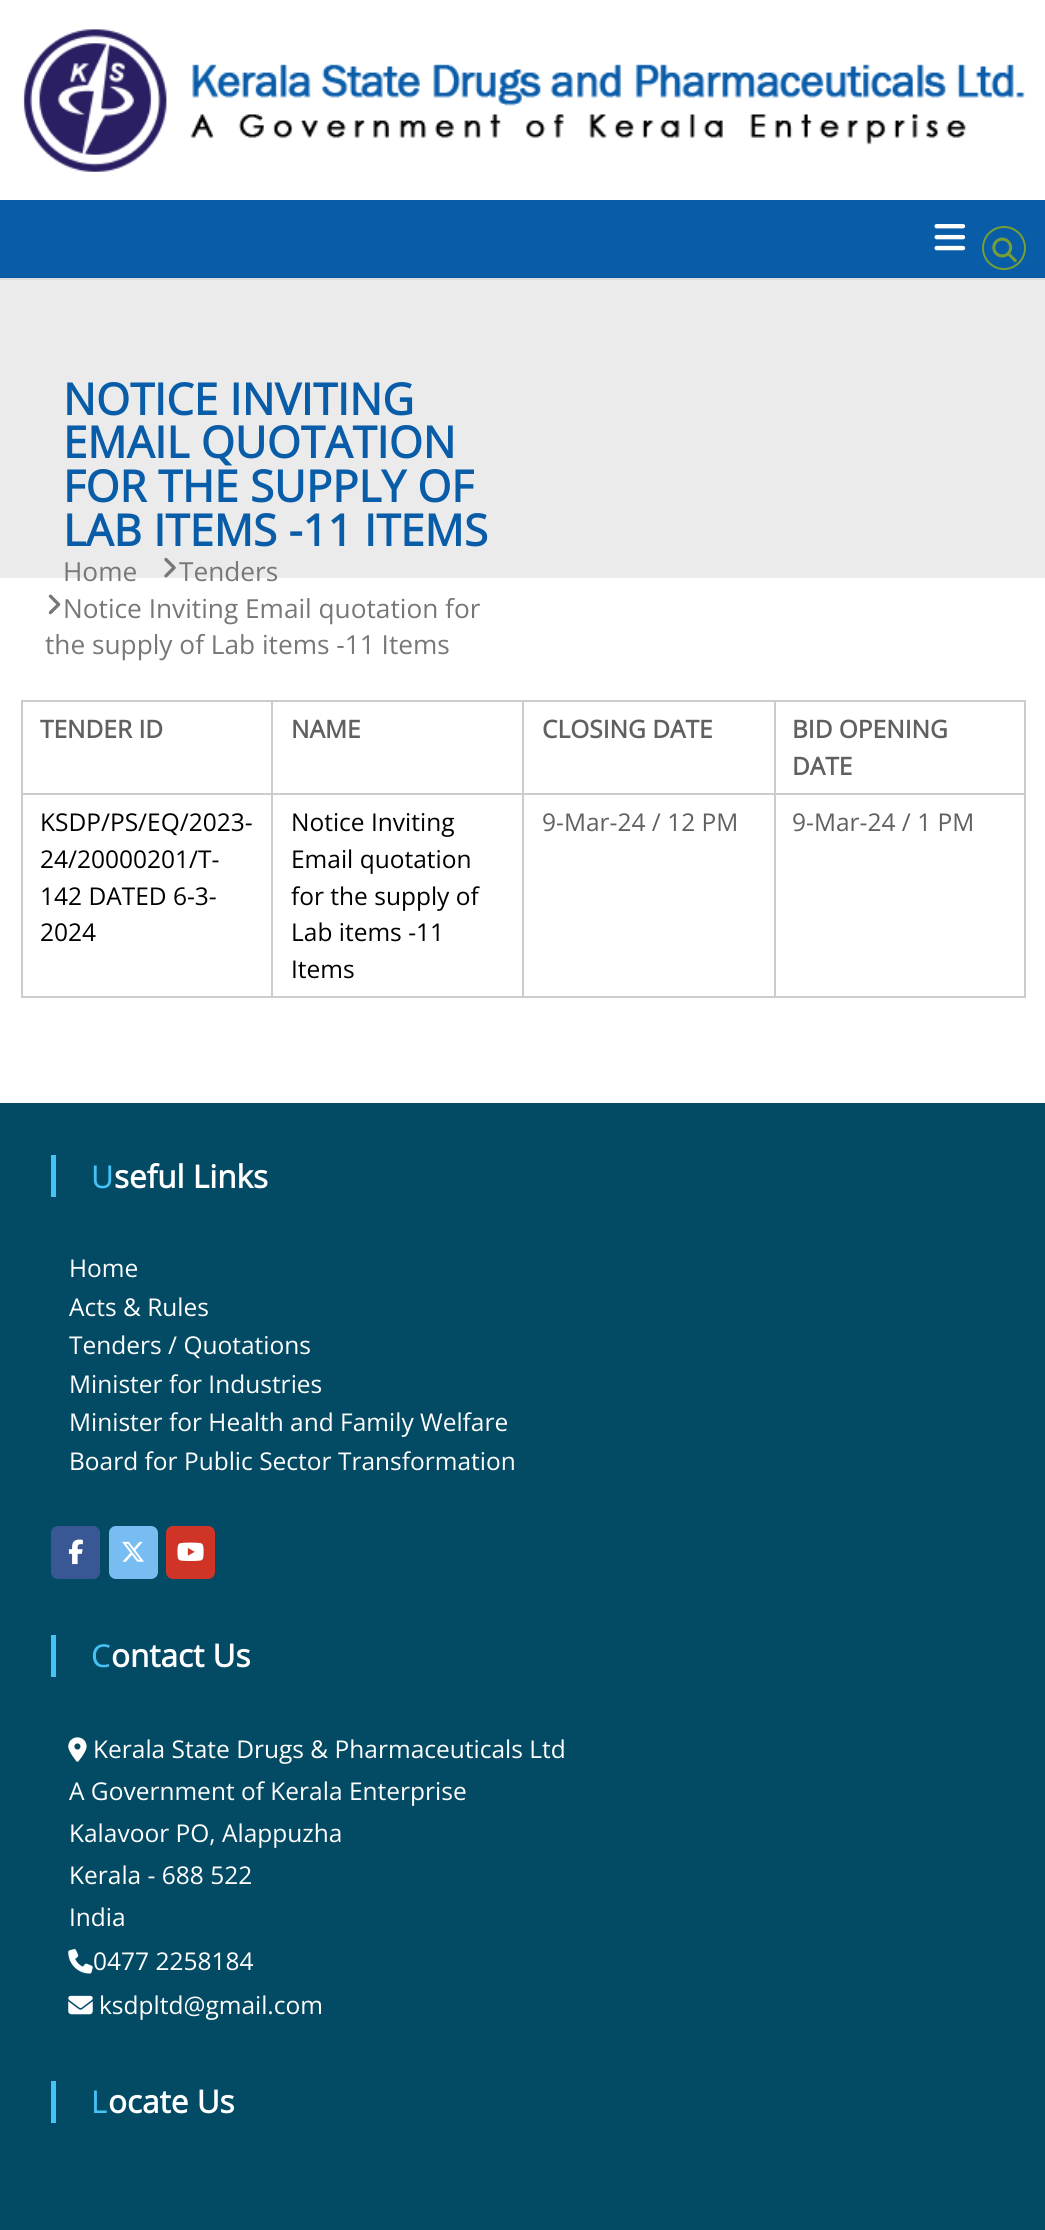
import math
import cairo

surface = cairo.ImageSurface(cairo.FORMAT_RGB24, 1045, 2230)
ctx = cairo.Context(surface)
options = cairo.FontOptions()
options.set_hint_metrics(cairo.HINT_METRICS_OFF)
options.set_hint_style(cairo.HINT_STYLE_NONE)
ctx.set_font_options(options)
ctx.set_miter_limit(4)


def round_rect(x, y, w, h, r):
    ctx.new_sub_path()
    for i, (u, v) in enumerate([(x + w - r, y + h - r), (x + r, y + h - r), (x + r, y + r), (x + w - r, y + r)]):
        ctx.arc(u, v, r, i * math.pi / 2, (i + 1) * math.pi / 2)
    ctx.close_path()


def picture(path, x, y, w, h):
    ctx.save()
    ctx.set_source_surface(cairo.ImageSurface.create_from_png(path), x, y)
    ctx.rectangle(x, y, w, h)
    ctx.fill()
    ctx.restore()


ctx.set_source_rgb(1, 1, 1)
ctx.paint()
ctx.set_source_rgb(0.867, 0.867, 0.867)
ctx.rectangle(0, 278, 1045, 2)
ctx.fill()
picture("img1.png", 23, 29, 1002, 143)
ctx.set_source_rgb(0.039, 0.361, 0.659)
ctx.rectangle(0, 200, 1045, 78)
ctx.fill()
picture("img2.png", 934, 224, 32, 27)
ctx.arc(1004, 248, 21, 0, 2 * math.pi)
ctx.set_source_rgb(0.459, 0.62, 0.212)
ctx.stroke()
picture("img3.png", 992, 237, 25, 25)
ctx.set_source_rgb(0.918, 0.918, 0.918)
ctx.rectangle(0, 280, 1045, 298)
ctx.fill()
ctx.select_font_face("Open Sans", cairo.FONT_SLANT_NORMAL, cairo.FONT_WEIGHT_BOLD)
ctx.set_font_size(43.75)
ctx.set_source_rgb(0.039, 0.361, 0.659)
ctx.move_to(63, 415)
ctx.show_text("NOTICE INVITING")
ctx.move_to(63, 458)
ctx.show_text("EMAIL QUOTATION")
ctx.move_to(63, 502)
ctx.show_text("FOR THE SUPPLY OF")
ctx.move_to(63, 546)
ctx.show_text("LAB ITEMS -11 ITEMS")
ctx.select_font_face("Open Sans")
ctx.set_font_size(26.25)
ctx.set_source_rgb(0.467, 0.467, 0.467)
ctx.move_to(63, 581)
ctx.show_text("Home")
picture("img4.png", 164, 557, 12, 21)
ctx.move_to(179, 581)
ctx.show_text("Tenders")
picture("img5.png", 48, 594, 13, 21)
ctx.move_to(63, 618)
ctx.show_text("Notice Inviting Email quotation for")
ctx.move_to(45, 654)
ctx.show_text("the supply of Lab items -11 Items")
ctx.set_source_rgb(0.8, 0.8, 0.8)
ctx.rectangle(774, 700, 252, 2)
ctx.fill()
ctx.rectangle(774, 793, 252, 2)
ctx.fill()
ctx.rectangle(1024, 793, 2, 205)
ctx.fill()
ctx.rectangle(774, 996, 252, 2)
ctx.fill()
ctx.rectangle(774, 793, 2, 205)
ctx.fill()
ctx.rectangle(522, 793, 253, 2)
ctx.fill()
ctx.rectangle(774, 700, 2, 95)
ctx.fill()
ctx.rectangle(522, 700, 253, 2)
ctx.fill()
ctx.rectangle(522, 996, 253, 2)
ctx.fill()
ctx.rectangle(522, 793, 2, 205)
ctx.fill()
ctx.rectangle(271, 793, 252, 2)
ctx.fill()
ctx.rectangle(522, 700, 2, 95)
ctx.fill()
ctx.rectangle(271, 700, 252, 2)
ctx.fill()
ctx.rectangle(271, 996, 252, 2)
ctx.fill()
ctx.rectangle(271, 793, 2, 205)
ctx.fill()
ctx.rectangle(21, 793, 252, 2)
ctx.fill()
ctx.rectangle(271, 700, 2, 95)
ctx.fill()
ctx.rectangle(21, 700, 252, 2)
ctx.fill()
ctx.rectangle(21, 996, 252, 2)
ctx.fill()
ctx.rectangle(21, 793, 2, 205)
ctx.fill()
ctx.rectangle(21, 700, 2, 95)
ctx.fill()
ctx.select_font_face("Open Sans", cairo.FONT_SLANT_NORMAL, cairo.FONT_WEIGHT_BOLD)
ctx.set_font_size(24.5)
ctx.set_source_rgb(0.376, 0.376, 0.376)
ctx.move_to(40, 738)
ctx.show_text("TENDER ID")
ctx.move_to(291, 738)
ctx.show_text("NAME")
ctx.move_to(542, 738)
ctx.show_text("CLOSING DATE")
ctx.set_source_rgb(0.8, 0.8, 0.8)
ctx.rectangle(1024, 700, 2, 95)
ctx.fill()
ctx.set_source_rgb(0.376, 0.376, 0.376)
ctx.move_to(792, 738)
ctx.show_text("BID OPENING")
ctx.move_to(792, 775)
ctx.show_text("DATE")
ctx.select_font_face("Open Sans")
ctx.set_source_rgb(0, 0, 0)
ctx.move_to(40, 831)
ctx.show_text("KSDP/PS/EQ/2023-")
ctx.move_to(40, 868)
ctx.show_text("24/20000201/T-")
ctx.move_to(40, 905)
ctx.show_text("142 DATED 6-3-")
ctx.move_to(40, 941)
ctx.show_text("2024")
ctx.move_to(291, 831)
ctx.show_text("Notice Inviting")
ctx.move_to(291, 868)
ctx.show_text("Email quotation")
ctx.move_to(291, 905)
ctx.show_text("for the supply of")
ctx.move_to(291, 941)
ctx.show_text("Lab items -11")
ctx.move_to(291, 978)
ctx.show_text("Items")
ctx.set_source_rgb(0.376, 0.376, 0.376)
ctx.move_to(542, 831)
ctx.show_text("9-Mar-24 / 12 PM")
ctx.move_to(792, 831)
ctx.show_text("9-Mar-24 / 1 PM")
ctx.set_source_rgb(0.012, 0.294, 0.392)
ctx.rectangle(0, 1103, 1045, 1127)
ctx.fill()
ctx.set_source_rgb(0.271, 0.765, 0.957)
ctx.rectangle(51, 1155, 5, 42)
ctx.fill()
ctx.select_font_face("Noto Sans")
ctx.set_font_size(31.5)
ctx.move_to(91, 1188)
ctx.show_text("U")
ctx.select_font_face("Open Sans", cairo.FONT_SLANT_NORMAL, cairo.FONT_WEIGHT_BOLD)
ctx.set_source_rgb(1, 1, 1)
ctx.move_to(114, 1188)
ctx.show_text("seful Links")
ctx.select_font_face("Open Sans")
ctx.set_font_size(24.5)
ctx.move_to(69, 1277)
ctx.show_text("Home")
ctx.move_to(69, 1316)
ctx.show_text("Acts & Rules")
ctx.move_to(69, 1354)
ctx.show_text("Tenders / Quotations")
ctx.move_to(69, 1393)
ctx.show_text("Minister for Industries")
ctx.move_to(69, 1431)
ctx.show_text("Minister for Health and Family Welfare")
ctx.move_to(69, 1470)
ctx.show_text("Board for Public Sector Transformation")
ctx.set_source_rgb(0.227, 0.341, 0.584)
round_rect(52, 1527, 47, 51, 6)
ctx.fill_preserve()
ctx.stroke()
picture("img6.png", 68, 1539, 15, 26)
ctx.set_source_rgb(0.471, 0.741, 0.945)
round_rect(110, 1527, 47, 51, 6)
ctx.fill_preserve()
ctx.stroke()
picture("img7.png", 122, 1541, 22, 21)
ctx.set_source_rgb(0.812, 0.204, 0.153)
round_rect(167, 1527, 47, 51, 6)
ctx.fill_preserve()
ctx.stroke()
picture("img8.png", 177, 1542, 27, 19)
ctx.set_source_rgb(0.271, 0.765, 0.957)
ctx.rectangle(51, 1635, 5, 42)
ctx.fill()
ctx.select_font_face("Noto Sans")
ctx.set_font_size(31.5)
ctx.move_to(91, 1667)
ctx.show_text("C")
ctx.select_font_face("Open Sans", cairo.FONT_SLANT_NORMAL, cairo.FONT_WEIGHT_BOLD)
ctx.set_source_rgb(1, 1, 1)
ctx.move_to(111, 1667)
ctx.show_text("ontact Us")
picture("img9.png", 68, 1737, 19, 25)
ctx.select_font_face("Open Sans")
ctx.set_font_size(24.5)
ctx.move_to(93, 1758)
ctx.show_text("Kerala State Drugs & Pharmaceuticals Ltd")
ctx.move_to(69, 1800)
ctx.show_text("A Government of Kerala Enterprise")
ctx.move_to(69, 1842)
ctx.show_text("Kalavoor PO, Alappuzha")
ctx.move_to(69, 1884)
ctx.show_text("Kerala - 688 522")
ctx.move_to(69, 1926)
ctx.show_text("India")
picture("img10.png", 68, 1949, 25, 25)
ctx.move_to(93, 1970)
ctx.show_text("0477 2258184")
picture("img11.png", 68, 1995, 25, 20)
ctx.move_to(99, 2014)
ctx.show_text("ksdpltd@gmail.com")
ctx.set_source_rgb(0.271, 0.765, 0.957)
ctx.rectangle(51, 2081, 5, 42)
ctx.fill()
ctx.select_font_face("Noto Sans")
ctx.set_font_size(31.5)
ctx.move_to(91, 2113)
ctx.show_text("L")
ctx.select_font_face("Open Sans", cairo.FONT_SLANT_NORMAL, cairo.FONT_WEIGHT_BOLD)
ctx.set_source_rgb(1, 1, 1)
ctx.move_to(108, 2113)
ctx.show_text("ocate Us")
surface.write_to_png("page.png")
